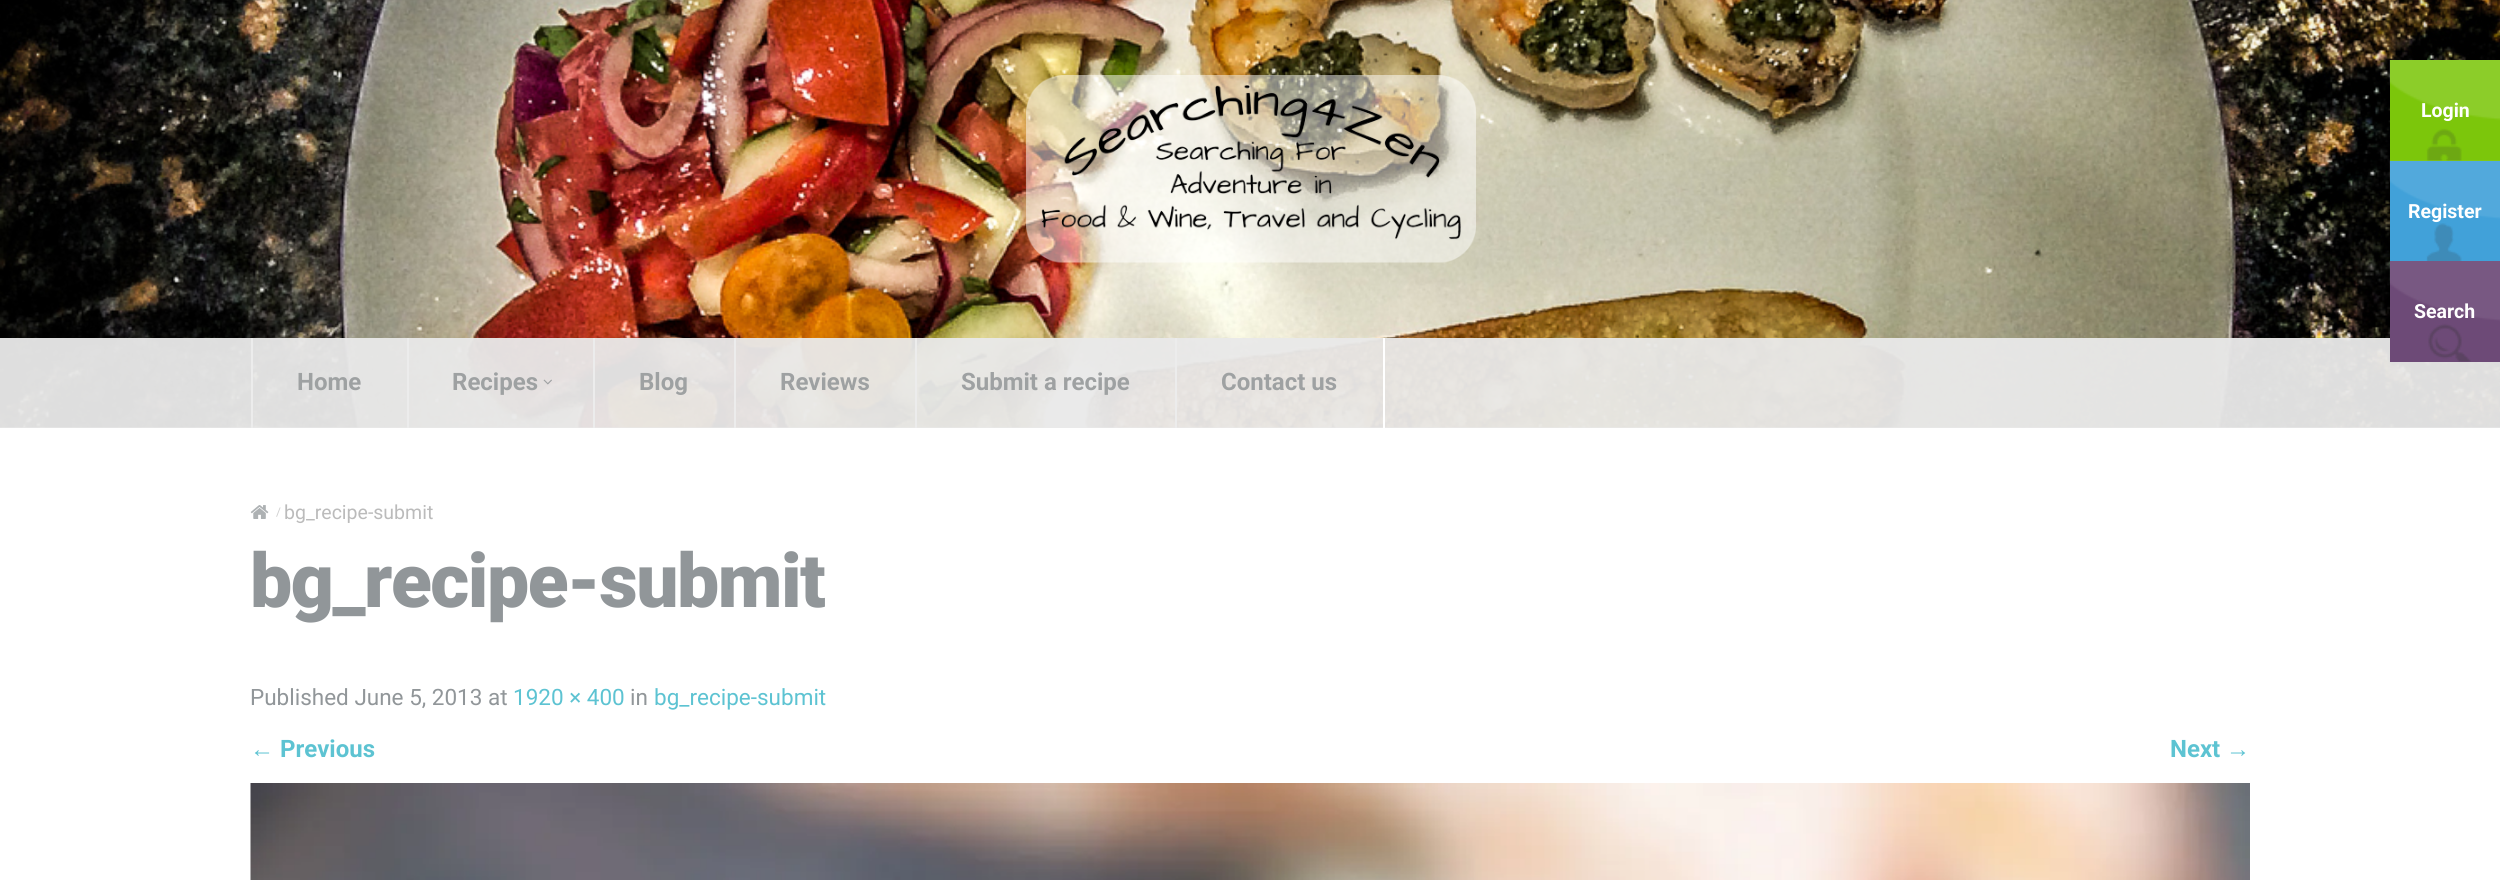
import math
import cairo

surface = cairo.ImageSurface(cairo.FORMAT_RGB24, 2500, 880)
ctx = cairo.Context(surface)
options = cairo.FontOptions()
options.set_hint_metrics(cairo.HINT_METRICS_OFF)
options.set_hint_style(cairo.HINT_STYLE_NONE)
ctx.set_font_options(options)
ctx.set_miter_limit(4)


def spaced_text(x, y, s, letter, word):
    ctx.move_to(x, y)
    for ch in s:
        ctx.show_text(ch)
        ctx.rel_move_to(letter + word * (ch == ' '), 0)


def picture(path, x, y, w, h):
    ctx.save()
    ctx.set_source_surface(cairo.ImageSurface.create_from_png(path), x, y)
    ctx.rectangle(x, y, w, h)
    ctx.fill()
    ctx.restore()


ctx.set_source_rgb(1, 1, 1)
ctx.paint()
picture("img1.png", 0, 0, 2500, 428)
picture("img2.png", 1026, 75, 450, 188)
ctx.set_source_rgb(0.486, 0.776, 0.043)
ctx.rectangle(2390, 60, 110, 101)
ctx.fill()
picture("img3.png", 2389, 60, 111, 101)
ctx.select_font_face("Roboto", cairo.FONT_SLANT_NORMAL, cairo.FONT_WEIGHT_BOLD)
ctx.set_font_size(19.5)
ctx.set_source_rgb(1, 1, 1)
ctx.move_to(2421, 117)
ctx.show_text("Login")
ctx.set_source_rgb(0.255, 0.631, 0.851)
ctx.rectangle(2390, 161, 110, 100)
ctx.fill()
picture("img4.png", 2389, 160, 111, 101)
ctx.set_source_rgb(1, 1, 1)
ctx.move_to(2408, 218)
ctx.show_text("Register")
ctx.set_source_rgba(0.914, 0.914, 0.914, 0.95)
ctx.rectangle(0, 338, 2500, 90)
ctx.fill()
ctx.set_source_rgb(0.427, 0.29, 0.467)
ctx.rectangle(2390, 261, 110, 101)
ctx.fill()
picture("img5.png", 2389, 261, 111, 101)
ctx.set_source_rgb(1, 1, 1)
ctx.move_to(2414, 318)
ctx.show_text("Search")
ctx.set_source_rgb(0.922, 0.922, 0.922)
ctx.rectangle(251, 338, 2, 90)
ctx.fill()
ctx.set_font_size(24)
ctx.set_source_rgb(0.62, 0.631, 0.635)
ctx.move_to(297, 390)
ctx.show_text("Home")
ctx.set_source_rgb(0.922, 0.922, 0.922)
ctx.rectangle(407, 338, 2, 90)
ctx.fill()
ctx.set_source_rgb(0.62, 0.631, 0.635)
ctx.move_to(452, 390)
ctx.show_text("Recipes")
picture("img6.png", 543, 379, 9, 6)
ctx.set_source_rgb(0.922, 0.922, 0.922)
ctx.rectangle(593, 338, 2, 90)
ctx.fill()
ctx.set_source_rgb(0.62, 0.631, 0.635)
ctx.move_to(639, 390)
ctx.show_text("Blog")
ctx.set_source_rgb(0.922, 0.922, 0.922)
ctx.rectangle(734, 338, 2, 90)
ctx.fill()
ctx.set_source_rgb(0.62, 0.631, 0.635)
ctx.move_to(780, 390)
ctx.show_text("Reviews")
ctx.set_source_rgb(0.922, 0.922, 0.922)
ctx.rectangle(915, 338, 2, 90)
ctx.fill()
ctx.set_source_rgb(0.62, 0.631, 0.635)
ctx.move_to(961, 390)
ctx.show_text("Submit a recipe")
ctx.set_source_rgb(1, 1, 1)
ctx.rectangle(1383, 338, 2, 90)
ctx.fill()
ctx.set_source_rgb(0.922, 0.922, 0.922)
ctx.rectangle(1175, 338, 2, 90)
ctx.fill()
ctx.set_source_rgb(0.62, 0.631, 0.635)
ctx.move_to(1221, 390)
ctx.show_text("Contact us")
picture("img7.png", 250, 505, 19, 14)
ctx.select_font_face("Roboto")
ctx.set_font_size(12)
ctx.set_source_rgb(0.812, 0.812, 0.812)
ctx.move_to(276, 516)
ctx.show_text("/")
ctx.set_font_size(19.5)
ctx.set_source_rgb(0.733, 0.733, 0.733)
ctx.move_to(284, 519)
ctx.show_text("bg_recipe-submit")
ctx.select_font_face("Roboto Black")
ctx.set_font_size(75)
ctx.set_source_rgb(0.569, 0.588, 0.6)
spaced_text(250, 607, "bg_recipe-submit", -1.5, 0)
ctx.select_font_face("Roboto")
ctx.set_font_size(22.5)
ctx.move_to(250, 705)
ctx.show_text("Published June 5, 2013 at")
ctx.set_source_rgb(0.365, 0.765, 0.824)
ctx.move_to(513, 705)
ctx.show_text("1920 × 400")
ctx.set_source_rgb(0.569, 0.588, 0.6)
ctx.move_to(630, 705)
ctx.show_text("in")
ctx.set_source_rgb(0.365, 0.765, 0.824)
ctx.move_to(654, 705)
ctx.show_text("bg_recipe-submit")
ctx.select_font_face("Liberation Sans", cairo.FONT_SLANT_NORMAL, cairo.FONT_WEIGHT_BOLD)
ctx.set_font_size(24)
ctx.move_to(250, 757)
ctx.show_text("←")
ctx.select_font_face("Roboto", cairo.FONT_SLANT_NORMAL, cairo.FONT_WEIGHT_BOLD)
ctx.move_to(280, 757)
ctx.show_text("Previous")
ctx.move_to(2170, 757)
ctx.show_text("Next")
ctx.select_font_face("Liberation Sans", cairo.FONT_SLANT_NORMAL, cairo.FONT_WEIGHT_BOLD)
ctx.move_to(2226, 757)
ctx.show_text("→")
picture("img8.png", 250, 783, 2000, 97)
surface.write_to_png("page.png")
